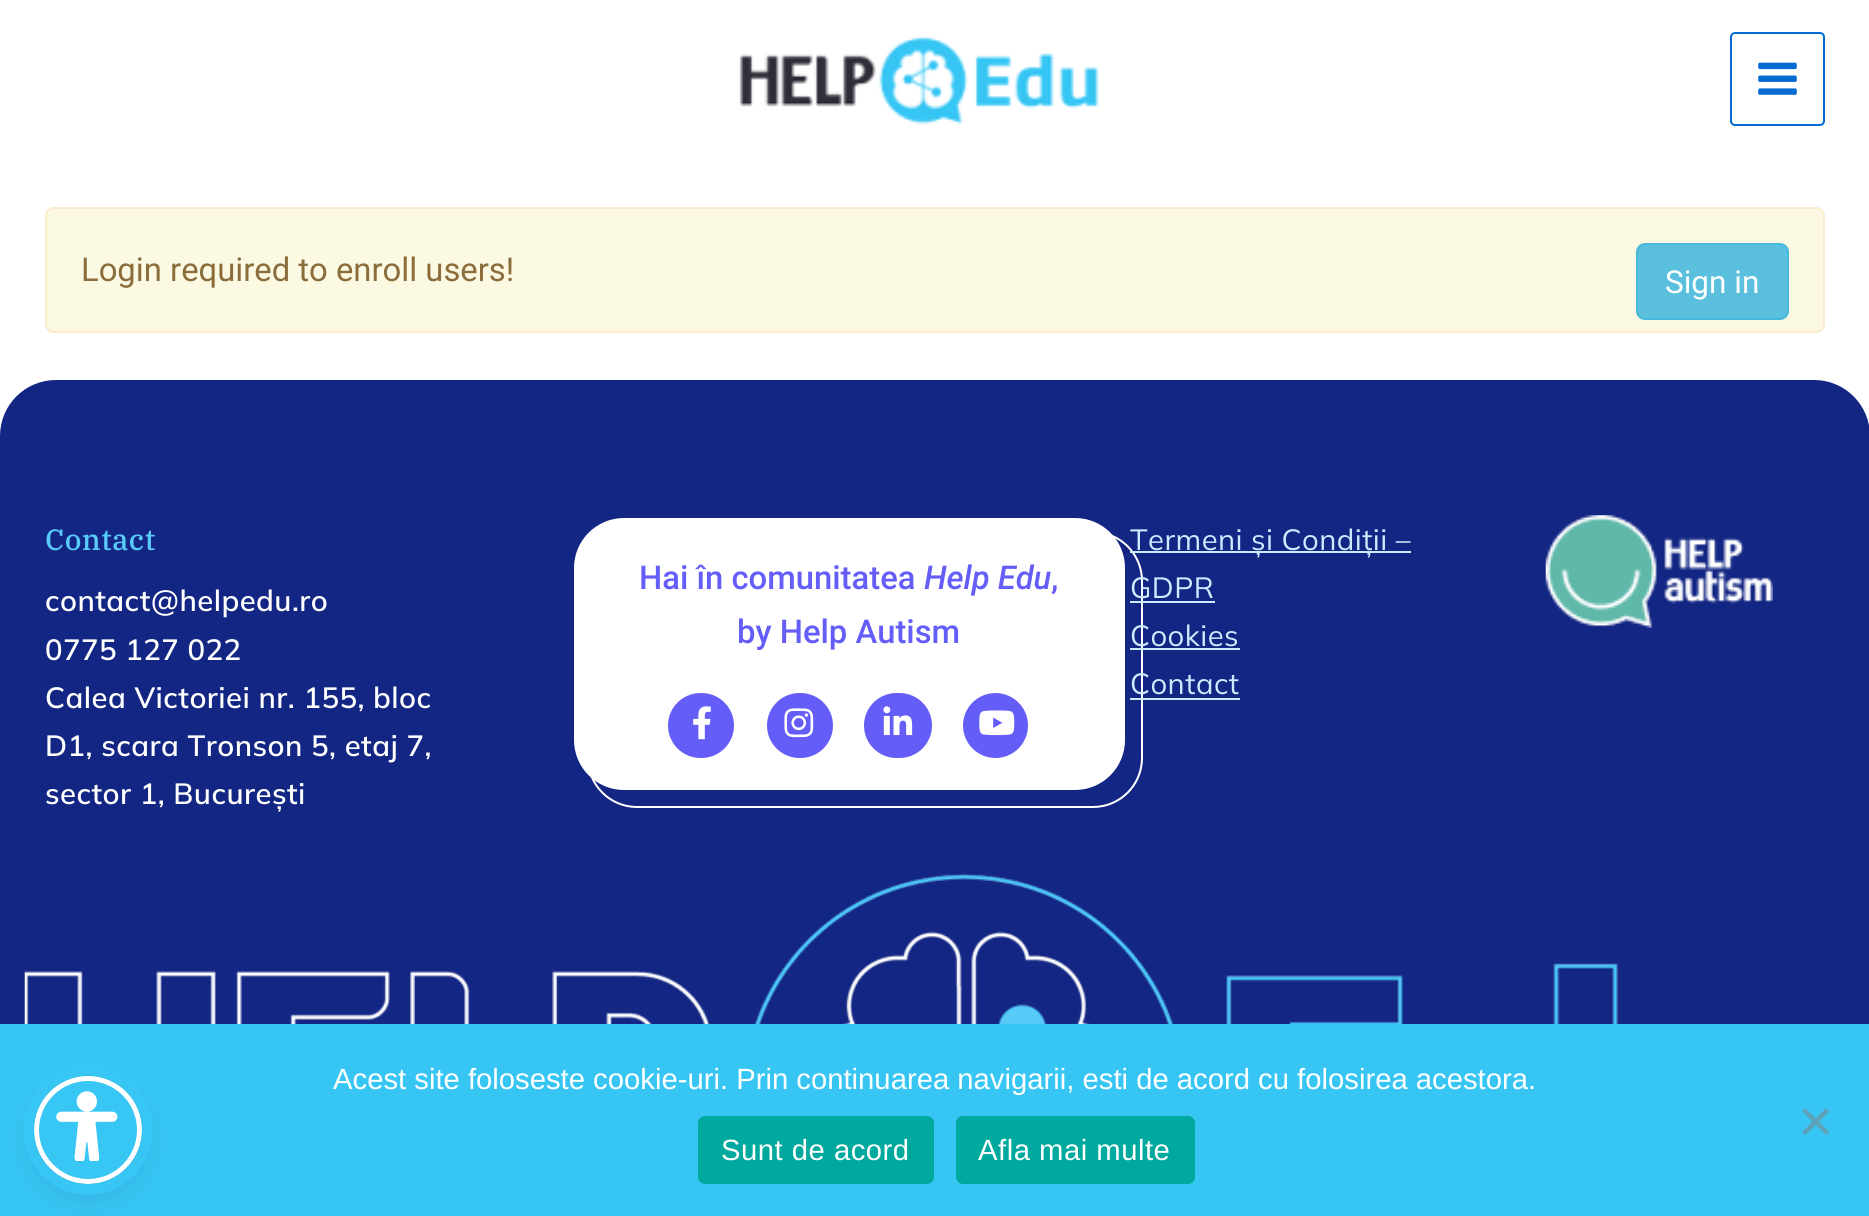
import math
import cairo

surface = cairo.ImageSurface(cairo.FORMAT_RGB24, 1869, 1216)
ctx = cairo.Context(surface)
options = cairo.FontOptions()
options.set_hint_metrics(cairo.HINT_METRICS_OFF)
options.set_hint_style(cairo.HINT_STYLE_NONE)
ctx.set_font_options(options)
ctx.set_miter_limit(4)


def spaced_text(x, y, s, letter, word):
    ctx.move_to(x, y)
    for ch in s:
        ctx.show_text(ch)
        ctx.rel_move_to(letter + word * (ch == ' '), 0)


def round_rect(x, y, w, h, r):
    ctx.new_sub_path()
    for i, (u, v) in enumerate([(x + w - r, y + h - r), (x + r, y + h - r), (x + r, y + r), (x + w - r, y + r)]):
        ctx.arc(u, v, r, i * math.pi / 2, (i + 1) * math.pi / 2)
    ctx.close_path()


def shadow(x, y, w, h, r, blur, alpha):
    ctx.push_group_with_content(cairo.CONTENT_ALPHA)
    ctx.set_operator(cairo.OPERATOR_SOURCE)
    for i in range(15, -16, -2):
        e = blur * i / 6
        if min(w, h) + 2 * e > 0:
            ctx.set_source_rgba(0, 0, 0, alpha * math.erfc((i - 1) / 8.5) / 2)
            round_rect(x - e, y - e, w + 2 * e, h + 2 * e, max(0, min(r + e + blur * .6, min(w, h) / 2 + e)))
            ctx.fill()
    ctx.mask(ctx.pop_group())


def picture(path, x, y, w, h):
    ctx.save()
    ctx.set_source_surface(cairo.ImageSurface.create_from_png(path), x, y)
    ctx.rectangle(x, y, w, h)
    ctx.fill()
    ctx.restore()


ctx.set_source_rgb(1, 1, 1)
ctx.paint()
picture("img1.png", 739, 35, 360, 90)
round_rect(1731, 33, 93, 92, 4)
ctx.set_source_rgb(0.016, 0.42, 0.824)
ctx.stroke()
picture("img2.png", 1758, 62, 39, 33)
ctx.set_source_rgb(0.988, 0.973, 0.89)
round_rect(46, 208, 1778, 124, 8)
ctx.fill_preserve()
ctx.set_source_rgb(0.98, 0.922, 0.8)
ctx.stroke()
ctx.select_font_face("Roboto")
ctx.set_font_size(32.8)
ctx.set_source_rgb(0.541, 0.427, 0.231)
ctx.move_to(81, 281)
ctx.show_text("Login required to enroll users!")
ctx.set_source_rgb(0.357, 0.753, 0.871)
round_rect(1637, 244, 151, 75, 8)
ctx.fill_preserve()
ctx.set_source_rgb(0.275, 0.722, 0.855)
ctx.stroke()
ctx.set_font_size(31.5)
ctx.set_source_rgb(1, 1, 1)
ctx.move_to(1665, 293)
ctx.show_text("Sign in")
ctx.set_source_rgb(0.075, 0.149, 0.514)
ctx.new_path()
ctx.move_to(56, 380)
ctx.line_to(1814, 380)
ctx.curve_to(1845, 380, 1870, 405, 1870, 436)
ctx.line_to(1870, 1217)
ctx.line_to(0, 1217)
ctx.line_to(0, 436)
ctx.curve_to(0, 405, 25, 380, 56, 380)
ctx.close_path()
ctx.fill()
ctx.select_font_face("IBM Plex Serif Medium")
ctx.set_font_size(29.25)
ctx.set_source_rgb(0.345, 0.796, 0.976)
spaced_text(45, 550, "Contact", 0.45, 0)
ctx.select_font_face("Mulish SemiBold")
ctx.set_source_rgb(1, 1, 1)
spaced_text(45, 611, "contact@helpedu.ro", 0.45, 0)
spaced_text(45, 660, "0775 127 022", 0.45, 0)
spaced_text(45, 708, "Calea Victoriei nr. 155, bloc", 0.45, 0)
spaced_text(45, 756, "D1, scara Tronson 5, etaj 7,", 0.45, 0)
spaced_text(45, 804, "sector 1, București", 0.45, 0)
round_rect(588, 532, 554, 275, 49)
ctx.stroke()
round_rect(574, 518, 551, 272, 50)
ctx.fill()
ctx.select_font_face("Roboto Medium")
ctx.set_font_size(32.8)
ctx.set_source_rgb(0.396, 0.365, 0.965)
ctx.move_to(639, 589)
ctx.show_text("Hai în comunitatea")
ctx.select_font_face("Roboto Medium", cairo.FONT_SLANT_ITALIC)
ctx.move_to(924, 589)
ctx.show_text("Help Edu")
ctx.select_font_face("Roboto Medium")
ctx.move_to(1051, 589)
ctx.show_text(",")
ctx.move_to(737, 643)
ctx.show_text("by Help Autism")
round_rect(668, 693, 66, 65, 32.5)
ctx.fill()
picture("img3.png", 693, 706, 18, 34)
round_rect(767, 693, 66, 65, 32.5)
ctx.fill()
picture("img4.png", 784, 708, 30, 30)
round_rect(864, 693, 68, 65, 32.5)
ctx.fill()
picture("img5.png", 883, 706, 30, 30)
ctx.arc(995.5, 725.5, 32.5, 0, 2 * math.pi)
ctx.fill()
picture("img6.png", 979, 710, 36, 26)
ctx.set_source_rgb(0.796, 0.922, 1)
ctx.rectangle(1130, 551, 281, 2)
ctx.fill()
ctx.select_font_face("Mulish")
ctx.set_font_size(29.25)
spaced_text(1130, 550, "Termeni și Condiții –", 0.45, 0)
spaced_text(1130, 598, "GDPR", 0.45, 0)
ctx.rectangle(1130, 601, 85, 2)
ctx.fill()
spaced_text(1130, 646, "Cookies", 0.45, 0)
ctx.rectangle(1130, 648, 110, 2)
ctx.fill()
spaced_text(1130, 694, "Contact", 0.45, 0)
ctx.rectangle(1130, 698, 110, 2)
ctx.fill()
picture("img7.png", 1545, 515, 228, 113)
picture("img8.png", 24, 873, 1595, 151)
ctx.set_source_rgb(0.216, 0.776, 0.957)
ctx.rectangle(0, 1024, 1869, 192)
ctx.fill()
ctx.set_source_rgb(0.365, 0.392, 0.58)
shadow(34, 1080, 108, 108, 54, 4.5, 0.2)
ctx.set_source_rgb(0.145, 0.173, 0.38)
shadow(34, 1087, 108, 108, 54, 17, 0.15)
ctx.set_source_rgb(0.22, 0.776, 0.957)
ctx.arc(88, 1130, 51.5, 0, 2 * math.pi)
ctx.fill_preserve()
ctx.set_source_rgb(1, 1, 1)
ctx.set_line_width(5)
ctx.stroke()
round_rect(28.5, 1069.5, 119, 120, 59.5)
ctx.set_source_rgb(0.22, 0.776, 0.957)
ctx.set_line_width(11)
ctx.stroke()
picture("img9.png", 56, 1091, 62, 70)
ctx.select_font_face("Liberation Sans")
ctx.set_source_rgb(1, 1, 1)
ctx.move_to(333, 1089)
ctx.show_text("Acest site foloseste cookie-uri. Prin continuarea navigarii, esti de acord cu folosirea acestora.")
ctx.set_source_rgb(0.361, 0.639, 0.729)
ctx.new_path()
ctx.move_to(1826, 1108)
ctx.line_to(1829.5, 1111.5)
ctx.line_to(1805.5, 1135)
ctx.line_to(1802, 1132)
ctx.close_path()
ctx.fill()
ctx.new_path()
ctx.move_to(1802, 1111.5)
ctx.line_to(1805.5, 1108)
ctx.line_to(1829.5, 1132)
ctx.line_to(1826, 1135)
ctx.close_path()
ctx.fill()
ctx.set_source_rgb(0, 0.663, 0.616)
round_rect(698, 1116, 236, 68, 7)
ctx.fill()
ctx.set_source_rgb(1, 1, 1)
spaced_text(721, 1160, "Sunt de acord", 0.5, 0)
ctx.set_source_rgb(0, 0.663, 0.616)
round_rect(956, 1116, 239, 68, 7)
ctx.fill()
ctx.set_source_rgb(1, 1, 1)
spaced_text(978, 1160, "Afla mai multe", 0.5, 0)
surface.write_to_png("page.png")
